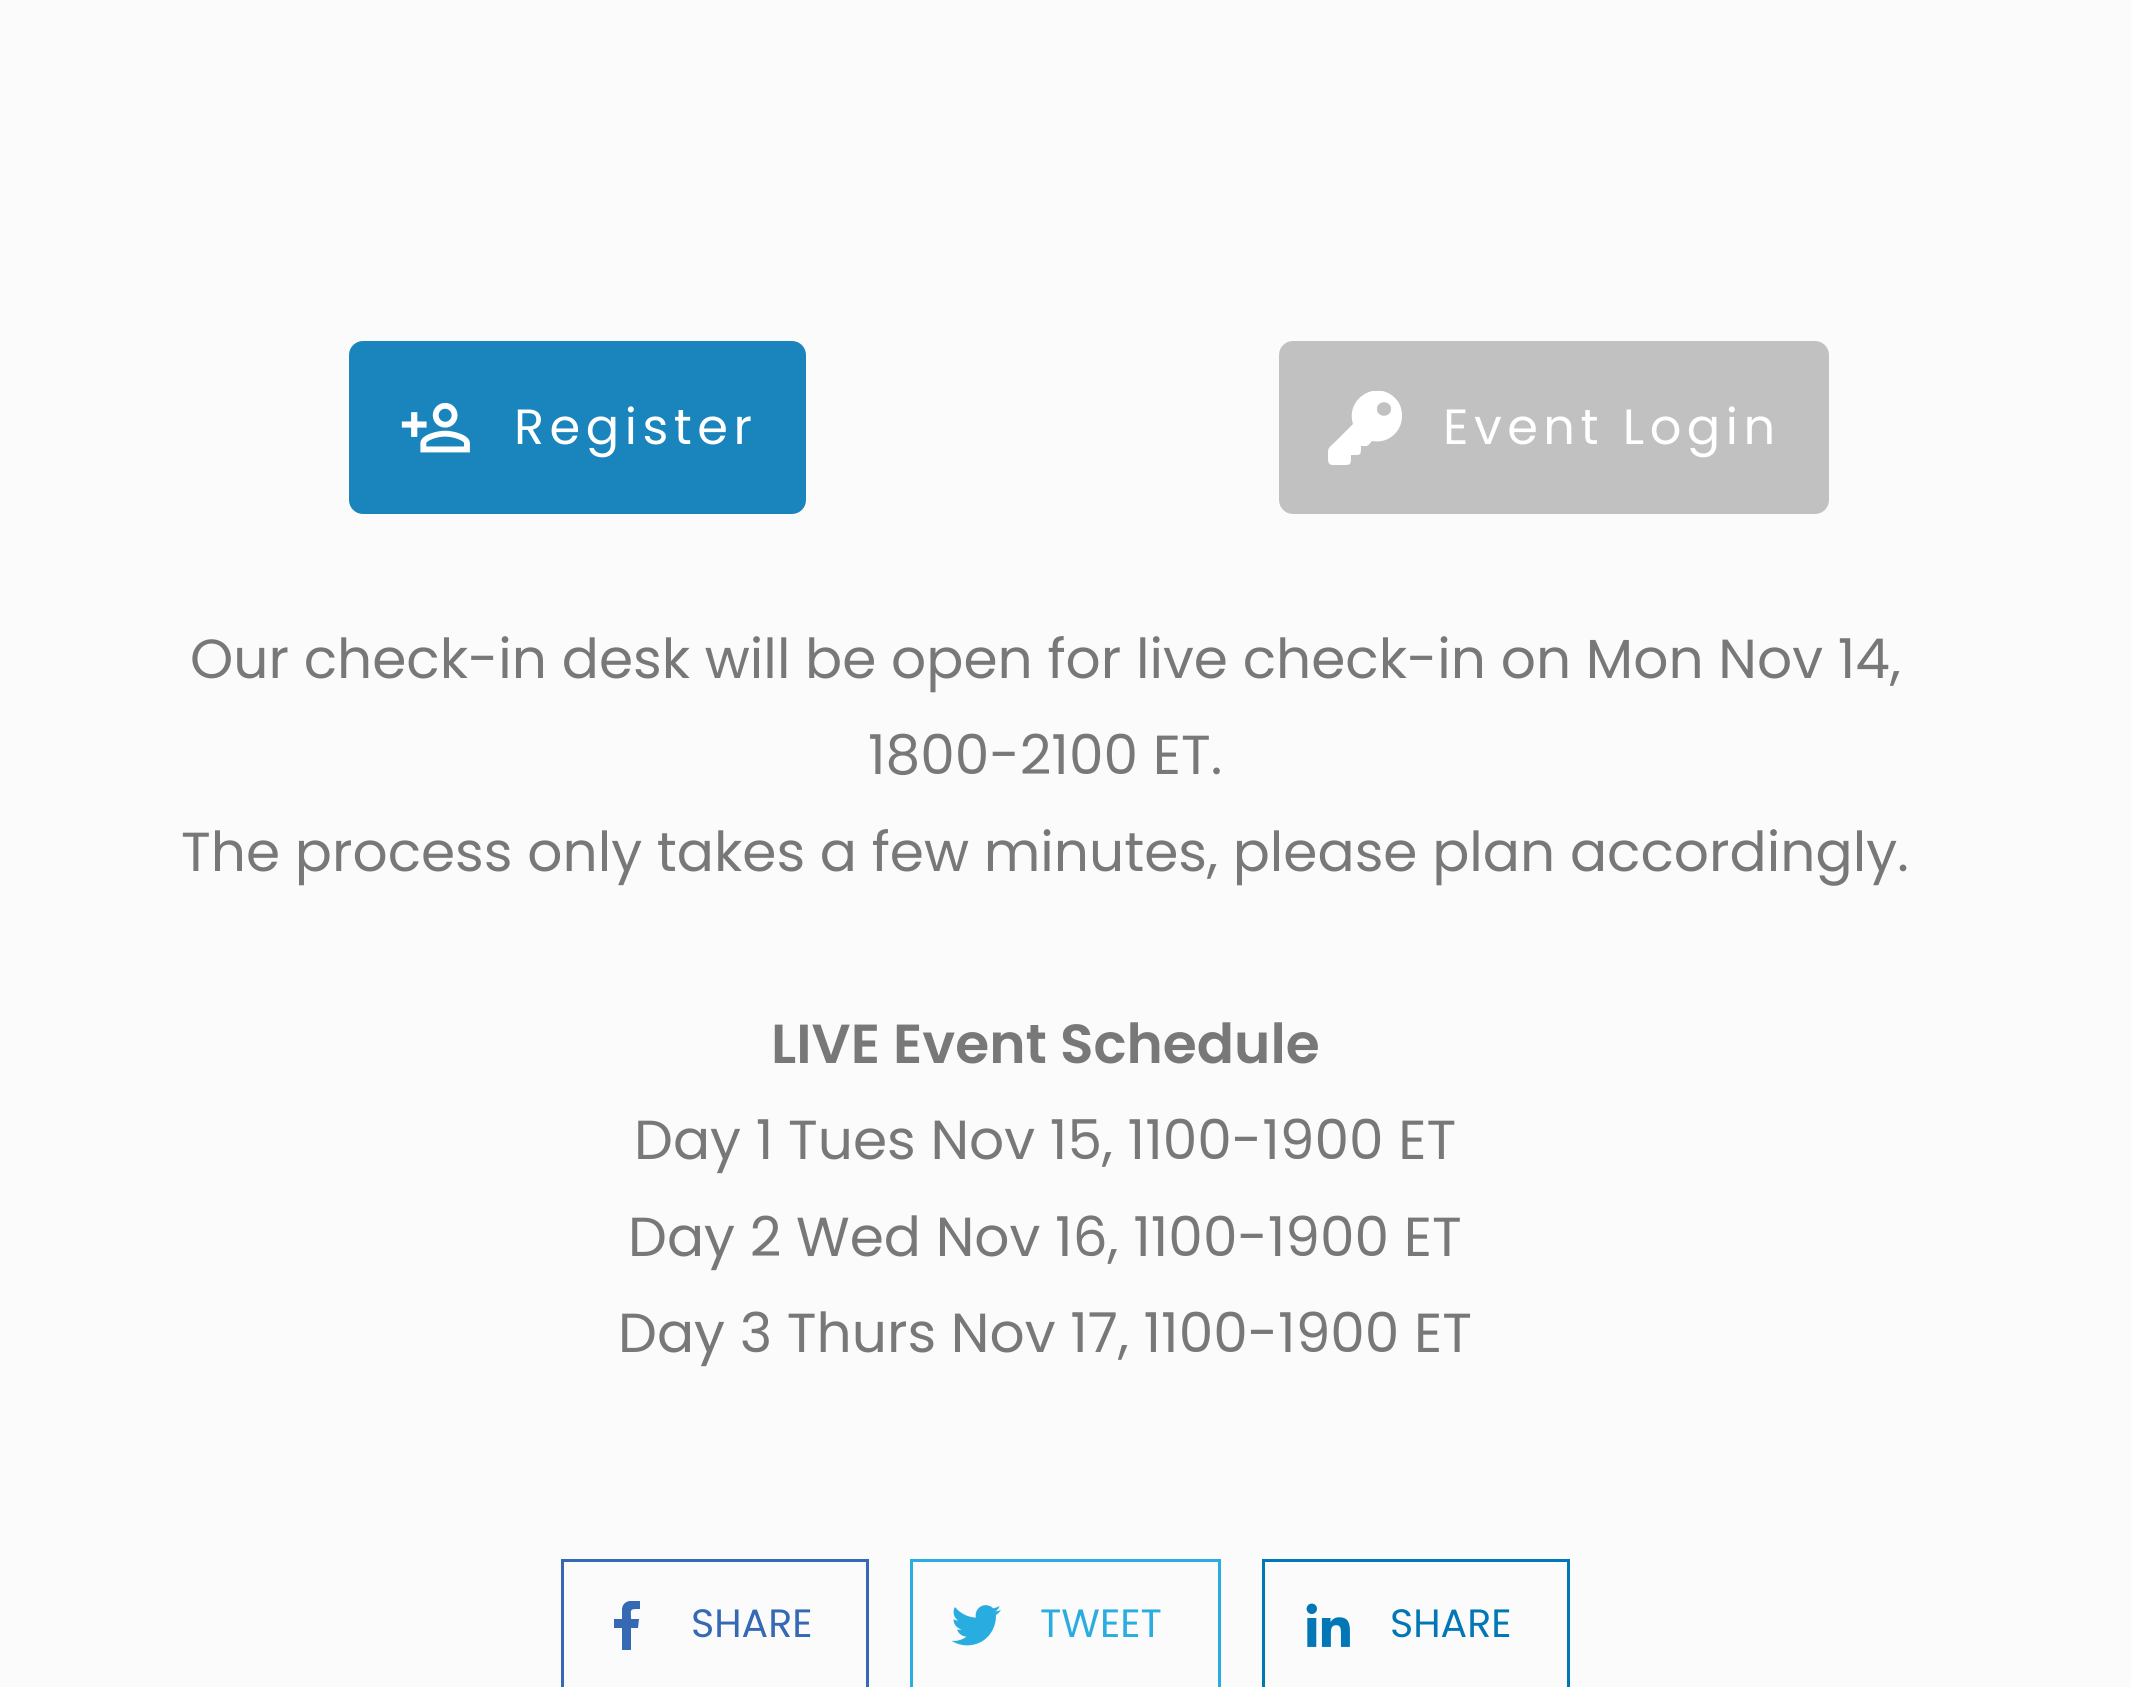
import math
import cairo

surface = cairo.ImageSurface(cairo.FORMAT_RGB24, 2131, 1687)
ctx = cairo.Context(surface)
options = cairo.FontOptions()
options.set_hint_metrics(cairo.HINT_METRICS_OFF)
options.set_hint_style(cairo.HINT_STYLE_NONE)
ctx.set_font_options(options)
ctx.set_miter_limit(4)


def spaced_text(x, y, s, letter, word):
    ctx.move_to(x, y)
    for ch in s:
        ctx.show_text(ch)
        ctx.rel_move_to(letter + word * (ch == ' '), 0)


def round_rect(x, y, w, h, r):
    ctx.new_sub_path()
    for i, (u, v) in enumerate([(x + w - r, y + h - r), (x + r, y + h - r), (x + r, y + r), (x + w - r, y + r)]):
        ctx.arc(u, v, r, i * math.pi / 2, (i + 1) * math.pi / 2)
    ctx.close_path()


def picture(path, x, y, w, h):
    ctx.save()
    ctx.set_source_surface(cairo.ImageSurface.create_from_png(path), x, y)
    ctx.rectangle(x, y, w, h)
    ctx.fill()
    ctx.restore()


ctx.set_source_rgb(0.984, 0.984, 0.984)
ctx.paint()
ctx.set_source_rgb(0.102, 0.522, 0.737)
round_rect(349, 341, 457, 173, 14)
ctx.fill()
picture("img1.png", 401, 402, 69, 51)
ctx.select_font_face("Poppins")
ctx.set_font_size(49.5)
ctx.set_source_rgb(1, 1, 1)
spaced_text(514, 444, "Register", 5.5, 0)
ctx.set_source_rgb(0.757, 0.757, 0.757)
round_rect(1279, 341, 550, 173, 14)
ctx.fill()
ctx.save()
ctx.rectangle(1328, 391, 75, 74)
ctx.clip()
ctx.set_source_rgb(1, 1, 1)
ctx.new_path()
ctx.move_to(1402, 416)
ctx.curve_to(1402, 432, 1388, 444, 1372, 441)
ctx.curve_to(1367, 447, 1368, 446, 1361, 446)
ctx.curve_to(1361, 456, 1361, 455, 1351, 455)
ctx.curve_to(1351, 466, 1351, 465, 1340, 465)
ctx.curve_to(1334, 465, 1328, 467, 1328, 459)
ctx.curve_to(1328, 446, 1327, 450, 1337, 440)
ctx.line_to(1353, 424)
ctx.curve_to(1345, 399, 1376, 379, 1395, 398)
ctx.curve_to(1400, 403, 1402, 409, 1402, 416)
ctx.close_path()
ctx.move_to(1377, 409)
ctx.curve_to(1377, 418, 1391, 418, 1391, 409)
ctx.curve_to(1391, 400, 1377, 400, 1377, 409)
ctx.close_path()
ctx.fill()
ctx.restore()
ctx.set_source_rgb(1, 1, 1)
spaced_text(1443, 444, "Event Login", 5.5, 0)
ctx.set_font_size(55)
ctx.set_source_rgb(0.471, 0.471, 0.471)
ctx.move_to(190, 678)
ctx.show_text("Our check-in desk will be open for live check-in on Mon Nov 14,")
ctx.move_to(868, 774)
ctx.show_text("1800-2100 ET.")
ctx.move_to(181, 871)
ctx.show_text("The process only takes a few minutes, please plan accordingly.")
ctx.select_font_face("Poppins SemiBold")
ctx.move_to(771, 1063)
ctx.show_text("LIVE Event Schedule")
ctx.select_font_face("Poppins")
ctx.move_to(634, 1159)
ctx.show_text("Day 1 Tues Nov 15, 1100-1900 ET")
ctx.move_to(628, 1256)
ctx.show_text("Day 2 Wed Nov 16, 1100-1900 ET")
ctx.move_to(618, 1352)
ctx.show_text("Day 3 Thurs Nov 17, 1100-1900 ET")
ctx.rectangle(562.5, 1560.5, 305, 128)
ctx.set_source_rgb(0.208, 0.412, 0.706)
ctx.set_line_width(3)
ctx.stroke()
ctx.save()
ctx.rectangle(602, 1601, 50, 49)
ctx.clip()
ctx.new_path()
ctx.move_to(622, 1650)
ctx.line_to(622, 1628)
ctx.line_to(614, 1628)
ctx.line_to(614, 1619)
ctx.line_to(622, 1619)
ctx.line_to(622, 1609)
ctx.curve_to(623, 1600, 632, 1600, 640, 1601)
ctx.line_to(640, 1609)
ctx.curve_to(629, 1609, 631, 1609, 631, 1619)
ctx.line_to(639, 1619)
ctx.line_to(638, 1628)
ctx.line_to(631, 1628)
ctx.line_to(631, 1650)
ctx.fill()
ctx.restore()
ctx.set_font_size(39.5)
ctx.move_to(691, 1637)
ctx.show_text("SHARE")
ctx.rectangle(911.5, 1560.5, 308, 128)
ctx.set_source_rgb(0.161, 0.675, 0.878)
ctx.stroke()
picture("img2.png", 952, 1605, 49, 41)
ctx.move_to(1040, 1637)
ctx.show_text("TWEET")
ctx.rectangle(1263.5, 1560.5, 305, 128)
ctx.set_source_rgb(0.004, 0.467, 0.71)
ctx.stroke()
picture("img3.png", 1306, 1603, 44, 44)
ctx.move_to(1390, 1637)
ctx.show_text("SHARE")
surface.write_to_png("page.png")
